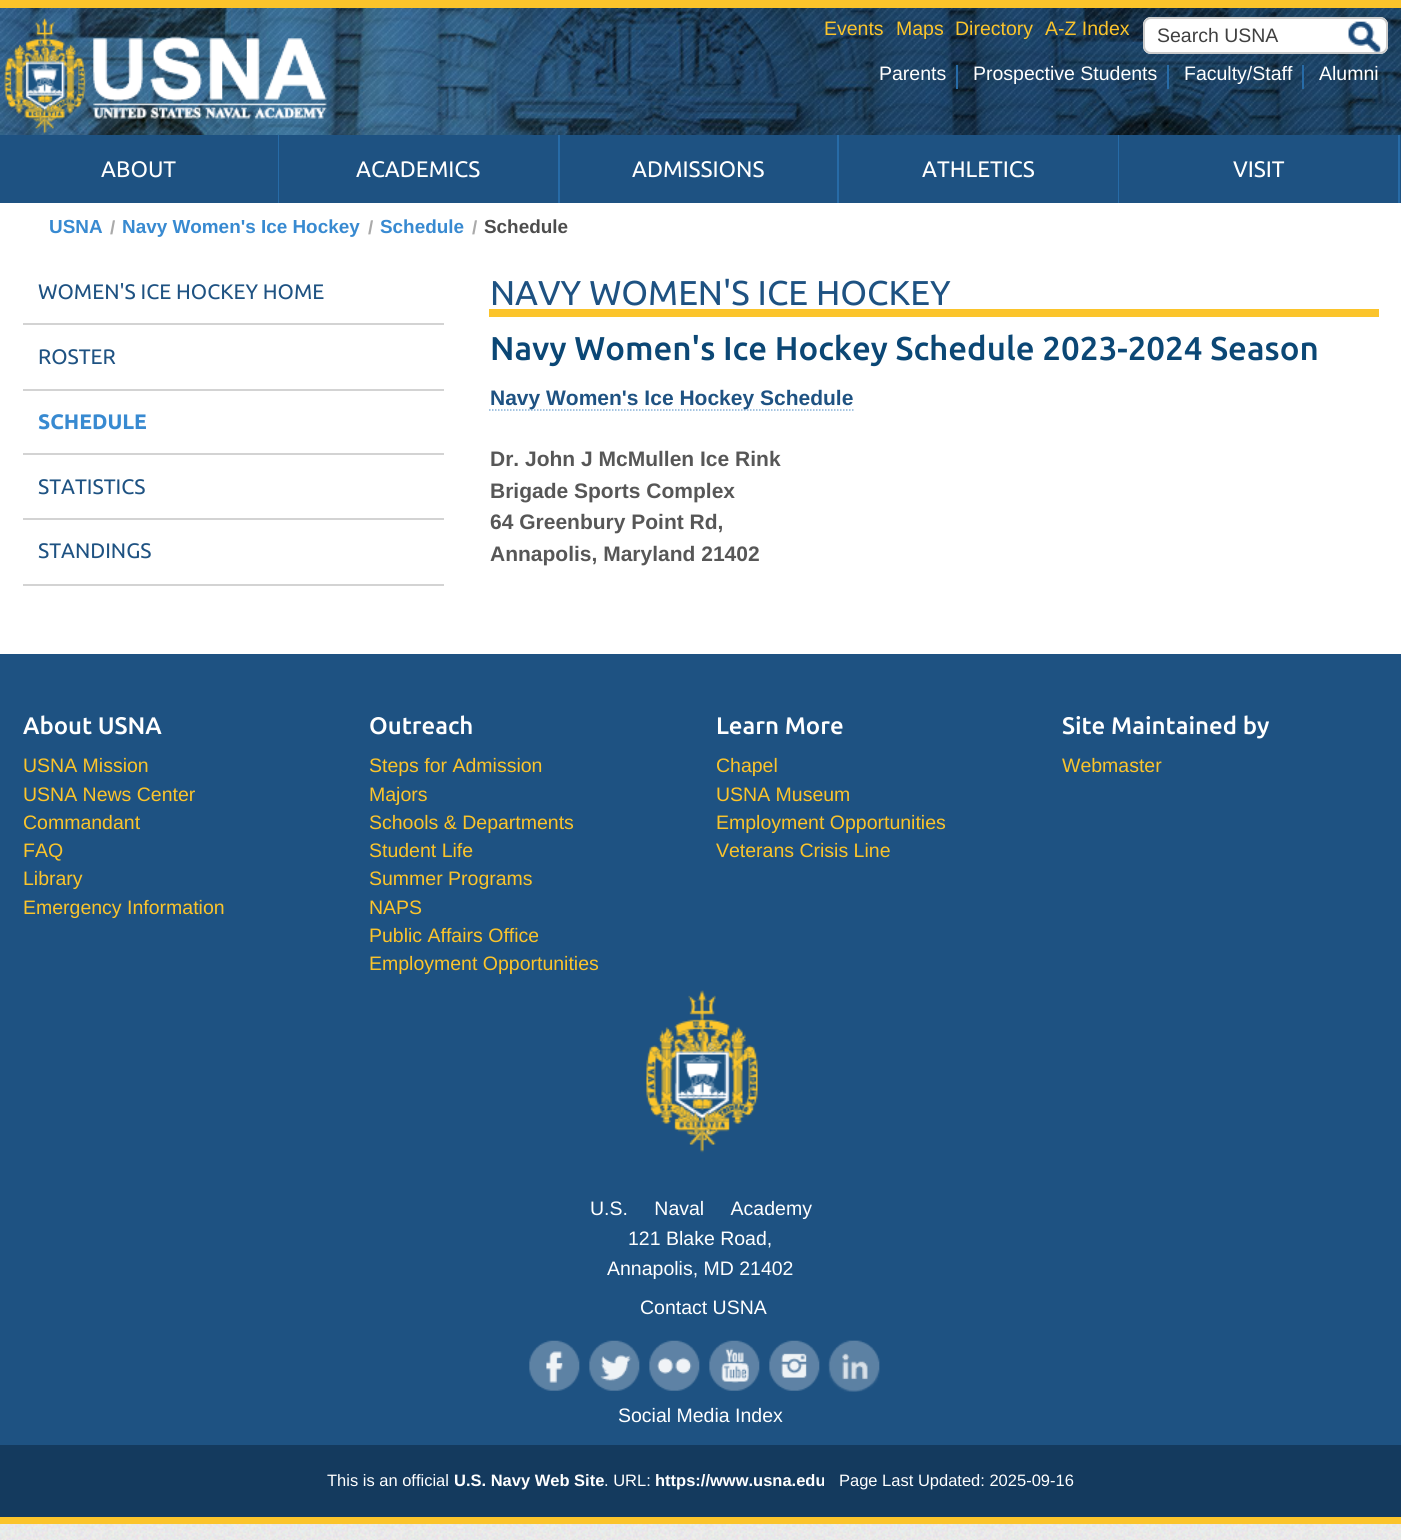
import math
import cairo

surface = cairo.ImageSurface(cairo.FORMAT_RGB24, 1401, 1540)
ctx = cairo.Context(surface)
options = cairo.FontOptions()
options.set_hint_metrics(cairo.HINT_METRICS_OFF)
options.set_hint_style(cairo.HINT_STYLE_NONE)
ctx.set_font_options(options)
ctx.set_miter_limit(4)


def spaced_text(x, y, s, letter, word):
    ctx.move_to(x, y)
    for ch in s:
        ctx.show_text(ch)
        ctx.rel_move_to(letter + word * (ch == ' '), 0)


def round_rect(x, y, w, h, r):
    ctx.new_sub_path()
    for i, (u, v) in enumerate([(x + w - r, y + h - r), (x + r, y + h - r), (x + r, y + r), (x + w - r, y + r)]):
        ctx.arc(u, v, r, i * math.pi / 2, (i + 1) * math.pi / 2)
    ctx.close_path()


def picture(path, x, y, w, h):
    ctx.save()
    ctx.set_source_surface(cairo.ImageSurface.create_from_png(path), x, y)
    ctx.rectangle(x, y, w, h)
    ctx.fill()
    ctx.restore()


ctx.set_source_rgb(1, 1, 1)
ctx.paint()
picture("img1.png", 0, 1524, 1401, 16)
picture("img2.png", 0, 8, 1401, 127)
ctx.set_source_rgb(0.984, 0.769, 0.169)
ctx.rectangle(0, 0, 1401, 8)
ctx.fill()
picture("img3.png", 4, 17, 323, 117)
ctx.select_font_face("Liberation Sans")
ctx.set_font_size(19.5)
ctx.move_to(824, 35)
ctx.show_text("Events")
ctx.move_to(896, 35)
ctx.show_text("Maps")
ctx.move_to(955, 35)
ctx.show_text("Directory")
ctx.move_to(1045, 35)
ctx.show_text("A-Z Index")
ctx.set_source_rgb(1, 1, 1)
round_rect(1143, 17, 245, 37, 8)
ctx.fill()
picture("img4.png", 1348, 21, 33, 31)
round_rect(1144, 18, 243, 35, 7)
ctx.set_source_rgb(0.8, 0.8, 0.8)
ctx.stroke()
ctx.set_source_rgb(0.251, 0.251, 0.251)
ctx.move_to(1157, 42)
ctx.show_text("Search USNA")
ctx.set_source_rgb(1, 1, 1)
ctx.move_to(879, 80)
ctx.show_text("Parents")
ctx.set_source_rgb(0.153, 0.42, 0.655)
ctx.rectangle(956, 65, 2, 24)
ctx.fill()
ctx.set_source_rgb(1, 1, 1)
ctx.move_to(973, 80)
ctx.show_text("Prospective Students")
ctx.set_source_rgb(0.153, 0.42, 0.655)
ctx.rectangle(1167, 65, 2, 24)
ctx.fill()
ctx.set_source_rgb(1, 1, 1)
ctx.move_to(1184, 80)
ctx.show_text("Faculty/Staff")
ctx.set_source_rgb(0.153, 0.42, 0.655)
ctx.rectangle(1302, 65, 2, 24)
ctx.fill()
ctx.set_source_rgb(1, 1, 1)
ctx.move_to(1319, 80)
ctx.show_text("Alumni")
ctx.set_source_rgb(0.118, 0.322, 0.51)
ctx.rectangle(560, 135, 841, 68)
ctx.fill()
ctx.set_source_rgb(0.153, 0.42, 0.655)
ctx.rectangle(278, 135, 1, 68)
ctx.fill()
ctx.set_source_rgb(0.118, 0.322, 0.51)
ctx.rectangle(0, 135, 278, 68)
ctx.fill()
ctx.select_font_face("Ubuntu")
ctx.set_font_size(22.5)
ctx.set_source_rgb(1, 1, 1)
ctx.move_to(101, 177)
ctx.show_text("ABOUT")
ctx.set_source_rgb(0.153, 0.42, 0.655)
ctx.rectangle(558, 135, 2, 68)
ctx.fill()
ctx.set_source_rgb(0.118, 0.322, 0.51)
ctx.rectangle(279, 135, 279, 68)
ctx.fill()
ctx.set_source_rgb(1, 1, 1)
ctx.move_to(356, 177)
ctx.show_text("ACADEMICS")
ctx.set_source_rgb(0.153, 0.42, 0.655)
ctx.rectangle(837, 135, 2, 68)
ctx.fill()
ctx.set_source_rgb(1, 1, 1)
ctx.move_to(632, 177)
ctx.show_text("ADMISSIONS")
ctx.set_source_rgb(0.153, 0.42, 0.655)
ctx.rectangle(1118, 135, 1, 68)
ctx.fill()
ctx.set_source_rgb(1, 1, 1)
ctx.move_to(922, 177)
ctx.show_text("ATHLETICS")
ctx.set_source_rgb(0.153, 0.42, 0.655)
ctx.rectangle(1398, 135, 2, 68)
ctx.fill()
ctx.set_source_rgb(1, 1, 1)
ctx.move_to(1233, 177)
ctx.show_text("VISIT")
ctx.select_font_face("Liberation Sans", cairo.FONT_SLANT_NORMAL, cairo.FONT_WEIGHT_BOLD)
ctx.set_font_size(18.9)
ctx.set_source_rgb(0.22, 0.541, 0.82)
ctx.move_to(49, 233)
ctx.show_text("USNA")
ctx.set_source_rgb(0.667, 0.667, 0.667)
ctx.move_to(110, 234)
ctx.show_text("/")
ctx.set_source_rgb(0.22, 0.541, 0.82)
ctx.move_to(122, 233)
ctx.show_text("Navy Women's Ice Hockey")
ctx.set_source_rgb(0.667, 0.667, 0.667)
ctx.move_to(368, 234)
ctx.show_text("/")
ctx.set_source_rgb(0.22, 0.541, 0.82)
ctx.move_to(380, 233)
ctx.show_text("Schedule")
ctx.set_source_rgb(0.667, 0.667, 0.667)
ctx.move_to(472, 234)
ctx.show_text("/")
ctx.set_source_rgb(0.302, 0.302, 0.302)
ctx.move_to(484, 233)
ctx.show_text("Schedule")
ctx.set_source_rgb(0.827, 0.827, 0.827)
ctx.rectangle(23, 323, 421, 2)
ctx.fill()
ctx.select_font_face("Ubuntu")
ctx.set_font_size(21)
ctx.set_source_rgb(0.118, 0.322, 0.51)
ctx.move_to(38, 299)
ctx.show_text("WOMEN'S ICE HOCKEY HOME")
ctx.set_source_rgb(0.827, 0.827, 0.827)
ctx.rectangle(23, 389, 421, 2)
ctx.fill()
ctx.set_source_rgb(0.118, 0.322, 0.51)
ctx.move_to(38, 364)
ctx.show_text("ROSTER")
ctx.set_source_rgb(0.827, 0.827, 0.827)
ctx.rectangle(23, 453, 421, 2)
ctx.fill()
ctx.select_font_face("Ubuntu", cairo.FONT_SLANT_NORMAL, cairo.FONT_WEIGHT_BOLD)
ctx.set_source_rgb(0.22, 0.541, 0.82)
ctx.move_to(38, 429)
ctx.show_text("SCHEDULE")
ctx.set_source_rgb(0.827, 0.827, 0.827)
ctx.rectangle(23, 518, 421, 2)
ctx.fill()
ctx.select_font_face("Ubuntu")
ctx.set_source_rgb(0.118, 0.322, 0.51)
ctx.move_to(38, 494)
ctx.show_text("STATISTICS")
ctx.set_source_rgb(0.827, 0.827, 0.827)
ctx.rectangle(23, 584, 421, 2)
ctx.fill()
ctx.set_source_rgb(0.118, 0.322, 0.51)
ctx.move_to(38, 558)
ctx.show_text("STANDINGS")
ctx.set_source_rgb(0.984, 0.769, 0.169)
ctx.rectangle(489, 309, 890, 8)
ctx.fill()
ctx.set_font_size(34.5)
ctx.set_source_rgb(0.118, 0.322, 0.51)
ctx.move_to(490, 305)
ctx.show_text("NAVY WOMEN'S ICE HOCKEY")
ctx.select_font_face("Ubuntu Medium")
ctx.set_font_size(33)
ctx.set_source_rgb(0.043, 0.278, 0.459)
ctx.move_to(490, 360)
ctx.show_text("Navy Women's Ice Hockey Schedule 2023-2024 Season")
ctx.new_path()
ctx.move_to(489, 410)
ctx.line_to(853.5, 410)
ctx.set_source_rgb(0.525, 0.69, 0.839)
ctx.set_line_width(1.5)
ctx.set_dash([1.5, 1.5])
ctx.stroke()
ctx.select_font_face("Liberation Sans", cairo.FONT_SLANT_NORMAL, cairo.FONT_WEIGHT_BOLD)
ctx.set_font_size(21)
ctx.set_source_rgb(0.118, 0.322, 0.51)
ctx.move_to(490, 405)
ctx.show_text("Navy Women's Ice Hockey Schedule")
ctx.set_source_rgb(0.341, 0.341, 0.341)
ctx.move_to(490, 466)
ctx.show_text("Dr. John J McMullen Ice Rink")
ctx.move_to(490, 498)
ctx.show_text("Brigade Sports Complex")
ctx.move_to(490, 529)
ctx.show_text("64 Greenbury Point Rd,")
ctx.move_to(490, 561)
ctx.show_text("Annapolis, Maryland 21402")
ctx.set_source_rgb(0.118, 0.322, 0.51)
ctx.rectangle(0, 654, 1401, 791)
ctx.fill()
ctx.select_font_face("Ubuntu Medium")
ctx.set_font_size(24)
ctx.set_source_rgb(1, 1, 1)
ctx.move_to(23, 734)
ctx.show_text("About USNA")
ctx.select_font_face("Liberation Sans")
ctx.set_font_size(19.5)
ctx.set_source_rgb(0.984, 0.769, 0.169)
ctx.move_to(23, 772)
ctx.show_text("USNA Mission")
ctx.move_to(23, 801)
ctx.show_text("USNA News Center")
ctx.move_to(23, 829)
ctx.show_text("Commandant")
ctx.move_to(23, 857)
ctx.show_text("FAQ")
ctx.move_to(23, 885)
ctx.show_text("Library")
ctx.move_to(23, 914)
ctx.show_text("Emergency Information")
ctx.select_font_face("Ubuntu Medium")
ctx.set_font_size(24)
ctx.set_source_rgb(1, 1, 1)
ctx.move_to(369, 734)
ctx.show_text("Outreach")
ctx.select_font_face("Liberation Sans")
ctx.set_font_size(19.5)
ctx.set_source_rgb(0.984, 0.769, 0.169)
ctx.move_to(369, 772)
ctx.show_text("Steps for Admission")
ctx.move_to(369, 801)
ctx.show_text("Majors")
ctx.move_to(369, 829)
ctx.show_text("Schools & Departments")
ctx.move_to(369, 857)
ctx.show_text("Student Life")
ctx.move_to(369, 885)
ctx.show_text("Summer Programs")
ctx.move_to(369, 914)
ctx.show_text("NAPS")
ctx.move_to(369, 942)
ctx.show_text("Public Affairs Office")
ctx.move_to(369, 970)
ctx.show_text("Employment Opportunities")
ctx.select_font_face("Ubuntu Medium")
ctx.set_font_size(24)
ctx.set_source_rgb(1, 1, 1)
ctx.move_to(716, 734)
ctx.show_text("Learn More")
ctx.select_font_face("Liberation Sans")
ctx.set_font_size(19.5)
ctx.set_source_rgb(0.984, 0.769, 0.169)
ctx.move_to(716, 772)
ctx.show_text("Chapel")
ctx.move_to(716, 801)
ctx.show_text("USNA Museum")
ctx.move_to(716, 829)
ctx.show_text("Employment Opportunities")
ctx.move_to(716, 857)
ctx.show_text("Veterans Crisis Line")
ctx.select_font_face("Ubuntu Medium")
ctx.set_font_size(24)
ctx.set_source_rgb(1, 1, 1)
ctx.move_to(1062, 734)
ctx.show_text("Site Maintained by")
ctx.select_font_face("Liberation Sans")
ctx.set_font_size(19.5)
ctx.set_source_rgb(0.984, 0.769, 0.169)
ctx.move_to(1062, 772)
ctx.show_text("Webmaster")
picture("img5.png", 646, 990, 112, 163)
ctx.set_source_rgb(1, 1, 1)
spaced_text(590, 1215, "U.S. Naval Academy", 0, 21)
ctx.move_to(628, 1245)
ctx.show_text("121 Blake Road,")
ctx.move_to(607, 1275)
ctx.show_text("Annapolis, MD 21402")
ctx.move_to(640, 1314)
ctx.show_text("Contact USNA")
picture("img6.png", 529, 1340, 51, 51)
picture("img7.png", 589, 1340, 51, 51)
picture("img8.png", 649, 1340, 51, 51)
picture("img9.png", 709, 1340, 51, 51)
picture("img10.png", 769, 1340, 51, 51)
picture("img11.png", 828, 1340, 52, 52)
ctx.move_to(618, 1422)
ctx.show_text("Social Media Index")
ctx.set_source_rgb(0.082, 0.227, 0.369)
ctx.rectangle(0, 1445, 1401, 72)
ctx.fill()
ctx.set_source_rgb(0.984, 0.769, 0.169)
ctx.rectangle(0, 1517, 1401, 7)
ctx.fill()
ctx.set_font_size(16.5)
ctx.set_source_rgb(1, 1, 1)
ctx.move_to(327, 1486)
ctx.show_text("This is an official")
ctx.select_font_face("Liberation Sans", cairo.FONT_SLANT_NORMAL, cairo.FONT_WEIGHT_BOLD)
ctx.move_to(454, 1486)
ctx.show_text("U.S. Navy Web Site")
ctx.select_font_face("Liberation Sans")
ctx.move_to(604, 1486)
ctx.show_text(". URL:")
ctx.select_font_face("Liberation Sans", cairo.FONT_SLANT_NORMAL, cairo.FONT_WEIGHT_BOLD)
ctx.move_to(655, 1486)
ctx.show_text("https://www.usna.edu")
ctx.select_font_face("Liberation Sans")
ctx.move_to(839, 1486)
ctx.show_text("Page Last Updated: 2025-09-16")
surface.write_to_png("page.png")
